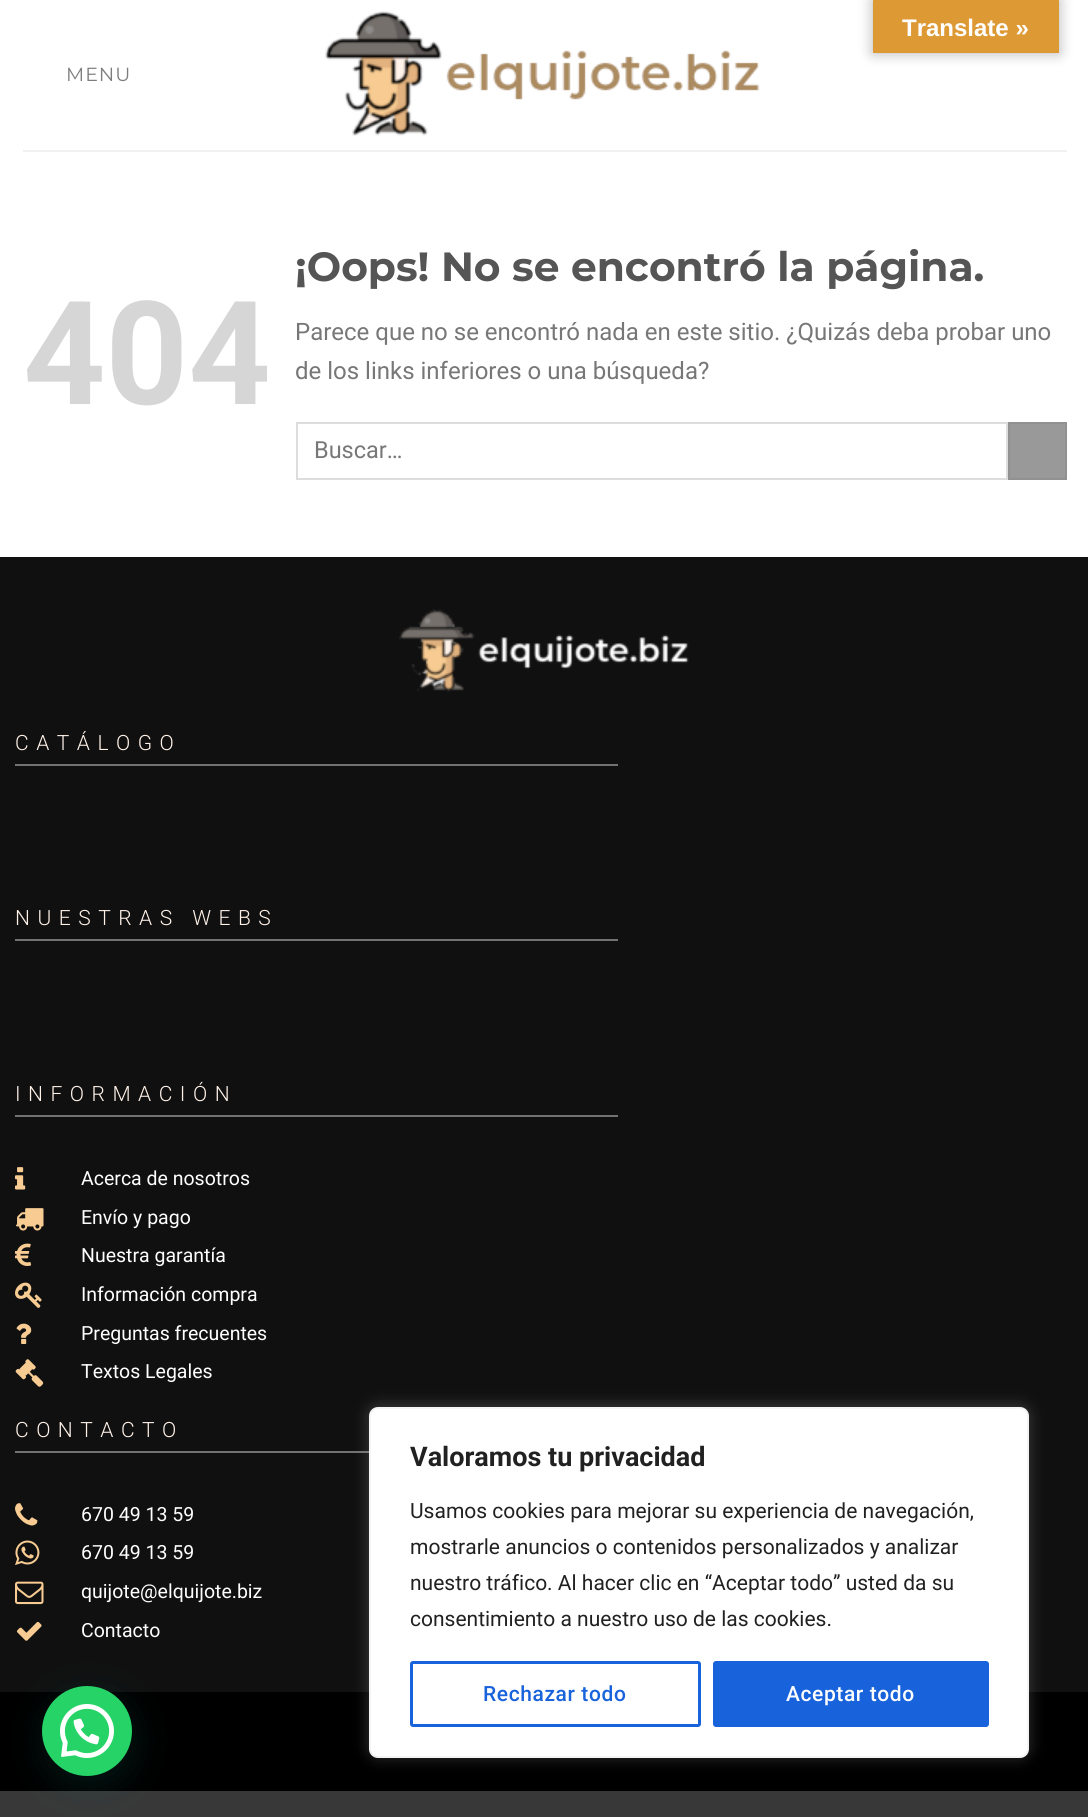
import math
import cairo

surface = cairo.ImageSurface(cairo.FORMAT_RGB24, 1088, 1817)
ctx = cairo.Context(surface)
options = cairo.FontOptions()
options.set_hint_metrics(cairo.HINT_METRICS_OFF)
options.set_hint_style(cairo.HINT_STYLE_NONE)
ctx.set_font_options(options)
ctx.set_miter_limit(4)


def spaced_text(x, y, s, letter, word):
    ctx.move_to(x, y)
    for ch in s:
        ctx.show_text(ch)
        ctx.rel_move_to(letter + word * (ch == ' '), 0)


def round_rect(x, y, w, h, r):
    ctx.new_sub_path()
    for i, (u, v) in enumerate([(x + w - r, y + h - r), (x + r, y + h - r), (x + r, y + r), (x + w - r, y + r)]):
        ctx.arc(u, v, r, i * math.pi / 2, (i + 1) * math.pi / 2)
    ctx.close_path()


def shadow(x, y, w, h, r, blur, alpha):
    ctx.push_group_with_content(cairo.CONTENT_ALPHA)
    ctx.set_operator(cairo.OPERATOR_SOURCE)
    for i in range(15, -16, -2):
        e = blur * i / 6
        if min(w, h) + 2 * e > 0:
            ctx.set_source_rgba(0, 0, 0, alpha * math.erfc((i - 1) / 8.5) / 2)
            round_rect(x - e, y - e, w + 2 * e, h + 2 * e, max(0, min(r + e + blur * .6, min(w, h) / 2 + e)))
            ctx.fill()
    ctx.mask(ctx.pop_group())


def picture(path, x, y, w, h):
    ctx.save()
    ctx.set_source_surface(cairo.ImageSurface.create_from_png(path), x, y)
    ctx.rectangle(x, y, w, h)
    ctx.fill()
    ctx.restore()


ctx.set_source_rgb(1, 1, 1)
ctx.paint()
ctx.set_source_rgb(0, 0, 0)
shadow(873, 0, 186, 53, 0, 7, 0.3)
ctx.set_source_rgb(0.867, 0.6, 0.2)
ctx.rectangle(873, 0, 186, 53)
ctx.fill()
ctx.select_font_face("Liberation Sans", cairo.FONT_SLANT_NORMAL, cairo.FONT_WEIGHT_BOLD)
ctx.set_font_size(24)
ctx.set_source_rgb(1, 1, 1)
ctx.move_to(902, 36)
ctx.show_text("Translate »")
ctx.select_font_face("Montserrat")
ctx.set_font_size(19)
ctx.set_source_rgb(0.49, 0.49, 0.49)
spaced_text(66, 81, "MENU", 1, 0)
picture("img1.png", 325, 11, 435, 125)
ctx.set_source_rgb(0.945, 0.945, 0.945)
ctx.rectangle(23, 150, 1044, 2)
ctx.fill()
ctx.select_font_face("Roboto", cairo.FONT_SLANT_NORMAL, cairo.FONT_WEIGHT_BOLD)
ctx.set_font_size(144)
ctx.set_source_rgb(0.839, 0.839, 0.839)
ctx.move_to(23, 404)
ctx.show_text("404")
ctx.select_font_face("Montserrat", cairo.FONT_SLANT_NORMAL, cairo.FONT_WEIGHT_BOLD)
ctx.set_font_size(40.75)
ctx.set_source_rgb(0.333, 0.333, 0.333)
ctx.move_to(295, 281)
ctx.show_text("¡Oops! No se encontró la página.")
ctx.select_font_face("Roboto")
ctx.set_font_size(24)
ctx.set_source_rgb(0.467, 0.467, 0.467)
ctx.move_to(295, 340)
ctx.show_text("Parece que no se encontró nada en este sitio. ¿Quizás deba probar uno")
ctx.move_to(295, 379)
ctx.show_text("de los links inferiores o una búsqueda?")
ctx.rectangle(297, 423, 710, 56)
ctx.set_source_rgb(0.867, 0.867, 0.867)
ctx.stroke()
ctx.set_font_size(23.5)
ctx.set_source_rgb(0.467, 0.467, 0.467)
ctx.move_to(314, 458)
ctx.show_text("Buscar…")
ctx.set_source_rgb(0.6, 0.6, 0.6)
ctx.rectangle(1009, 423, 57, 56)
ctx.fill_preserve()
ctx.set_source_rgb(0.569, 0.569, 0.569)
ctx.stroke()
ctx.set_source_rgb(0.063, 0.063, 0.063)
ctx.rectangle(0, 557, 1088, 1135)
ctx.fill()
picture("img2.png", 399, 609, 290, 83)
ctx.select_font_face("Roboto Light")
ctx.set_font_size(21)
ctx.set_source_rgb(1, 0.949, 0.914)
spaced_text(15, 750, "CATÁLOGO", 7.5, 0)
ctx.set_source_rgb(0.447, 0.447, 0.447)
ctx.rectangle(15, 764, 603, 2)
ctx.fill()
ctx.set_source_rgb(1, 0.949, 0.914)
spaced_text(15, 925, "NUESTRAS WEBS", 7.5, 0)
ctx.set_source_rgb(0.447, 0.447, 0.447)
ctx.rectangle(15, 939, 603, 2)
ctx.fill()
ctx.set_source_rgb(1, 0.949, 0.914)
spaced_text(15, 1101, "INFORMACIÓN", 7.5, 0)
ctx.set_source_rgb(0.447, 0.447, 0.447)
ctx.rectangle(15, 1115, 603, 2)
ctx.fill()
picture("img3.png", 15, 1167, 11, 23)
ctx.select_font_face("Roboto")
ctx.set_font_size(19.5)
ctx.set_source_rgb(1, 1, 1)
ctx.move_to(81, 1185)
ctx.show_text("Acerca de nosotros")
picture("img4.png", 16, 1208, 28, 23)
ctx.move_to(81, 1224)
ctx.show_text("Envío y pago")
picture("img5.png", 15, 1243, 17, 23)
ctx.move_to(81, 1262)
ctx.show_text("Nuestra garantía")
picture("img6.png", 15, 1282, 27, 26)
ctx.move_to(81, 1301)
ctx.show_text("Información compra")
picture("img7.png", 16, 1323, 16, 21)
ctx.move_to(81, 1340)
ctx.show_text("Preguntas frecuentes")
picture("img8.png", 15, 1359, 29, 28)
ctx.move_to(81, 1378)
ctx.show_text("Textos Legales")
ctx.select_font_face("Roboto Light")
ctx.set_font_size(21)
ctx.set_source_rgb(1, 0.949, 0.914)
spaced_text(15, 1437, "CONTACTO", 7.5, 0)
ctx.set_source_rgb(0.447, 0.447, 0.447)
ctx.rectangle(15, 1451, 354, 2)
ctx.fill()
picture("img9.png", 15, 1503, 23, 23)
ctx.select_font_face("Roboto")
ctx.set_font_size(19.5)
ctx.set_source_rgb(1, 1, 1)
ctx.move_to(81, 1521)
ctx.show_text("670 49 13 59")
picture("img10.png", 15, 1540, 25, 26)
ctx.move_to(81, 1559)
ctx.show_text("670 49 13 59")
picture("img11.png", 15, 1581, 29, 24)
ctx.move_to(81, 1598)
ctx.show_text("quijote@elquijote.biz")
picture("img12.png", 16, 1621, 26, 20)
ctx.move_to(81, 1637)
ctx.show_text("Contacto")
ctx.set_source_rgb(0, 0, 0)
ctx.rectangle(0, 1692, 1088, 99)
ctx.fill()
ctx.set_source_rgb(0.22, 0.22, 0.22)
ctx.rectangle(0, 1791, 1088, 26)
ctx.fill()
ctx.set_source_rgb(0.675, 0.671, 0.671)
shadow(369, 1406, 660, 351, 9, 7.5, 0.3)
ctx.set_source_rgb(1, 1, 1)
round_rect(370, 1408, 658, 349, 8)
ctx.fill_preserve()
ctx.set_source_rgb(0.957, 0.957, 0.957)
ctx.stroke()
ctx.select_font_face("Roboto", cairo.FONT_SLANT_NORMAL, cairo.FONT_WEIGHT_BOLD)
ctx.set_font_size(27)
ctx.set_source_rgb(0.129, 0.129, 0.129)
ctx.move_to(410, 1466)
ctx.show_text("Valoramos tu privacidad")
ctx.select_font_face("Roboto")
ctx.set_font_size(21)
ctx.move_to(410, 1518)
ctx.show_text("Usamos cookies para mejorar su experiencia de navegación,")
ctx.move_to(410, 1554)
ctx.show_text("mostrarle anuncios o contenidos personalizados y analizar")
ctx.move_to(410, 1590)
ctx.show_text("nuestro tráfico. Al hacer clic en “Aceptar todo” usted da su")
ctx.move_to(410, 1626)
ctx.show_text("consentimiento a nuestro uso de las cookies.")
round_rect(411.5, 1662.5, 288, 63, 1.5)
ctx.set_source_rgb(0.094, 0.388, 0.863)
ctx.set_line_width(3)
ctx.stroke()
ctx.select_font_face("Roboto Medium")
spaced_text(483, 1701, "Rechazar todo", 0.6, 0)
round_rect(714.5, 1662.5, 273, 63, 1.5)
ctx.fill_preserve()
ctx.stroke()
ctx.set_source_rgb(1, 1, 1)
spaced_text(786, 1701, "Aceptar todo", 0.6, 0)
ctx.set_source_rgb(0.027, 0.369, 0.329)
shadow(44, 1695, 90, 90, 45, 18, 0.24)
ctx.set_source_rgb(0.145, 0.827, 0.4)
ctx.arc(87, 1731, 45, 0, 2 * math.pi)
ctx.fill()
picture("img13.png", 60, 1704, 54, 54)
surface.write_to_png("page.png")
